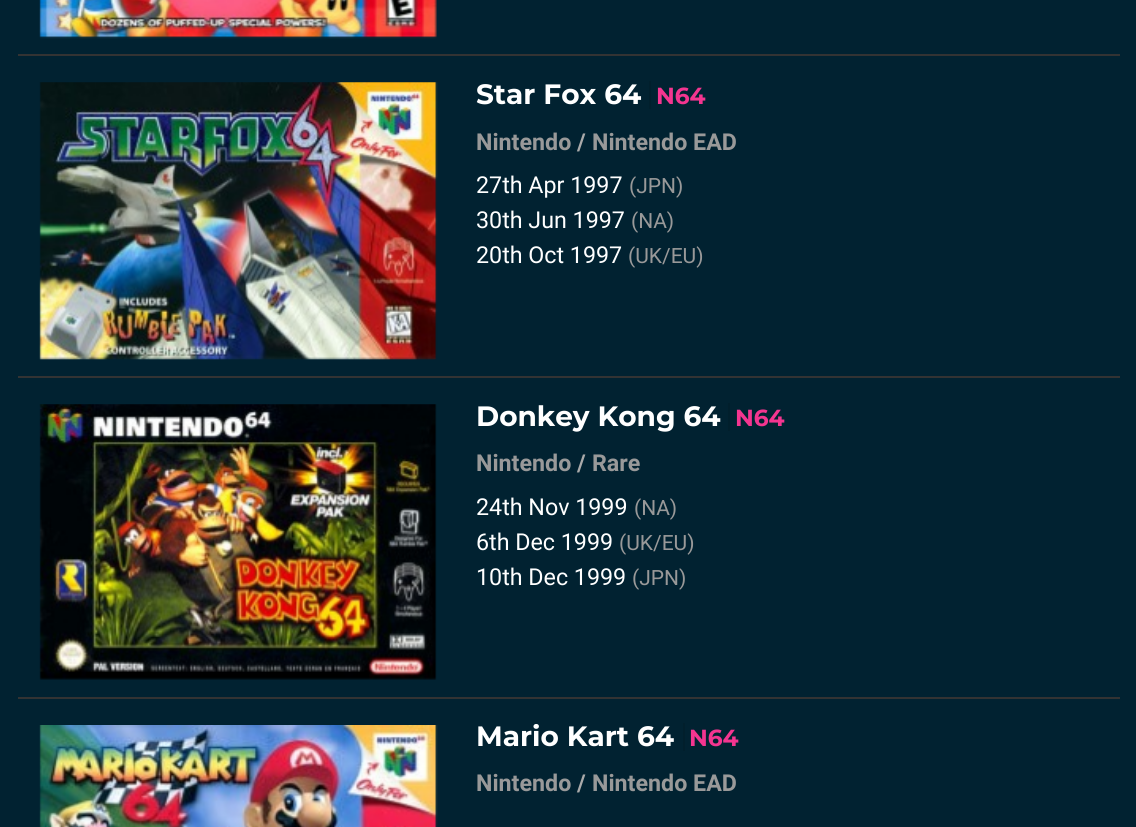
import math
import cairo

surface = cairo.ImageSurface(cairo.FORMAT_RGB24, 1136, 827)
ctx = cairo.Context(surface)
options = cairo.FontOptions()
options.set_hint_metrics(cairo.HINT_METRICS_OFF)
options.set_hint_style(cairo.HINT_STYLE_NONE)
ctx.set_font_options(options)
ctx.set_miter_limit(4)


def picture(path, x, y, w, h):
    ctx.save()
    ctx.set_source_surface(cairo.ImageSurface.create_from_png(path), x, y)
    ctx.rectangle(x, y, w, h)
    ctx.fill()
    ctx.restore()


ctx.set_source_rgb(0.004, 0.133, 0.192)
ctx.paint()
ctx.set_source_rgb(0.2, 0.2, 0.2)
ctx.rectangle(18, 54, 1102, 2)
ctx.fill()
picture("img1.png", 39, 0, 398, 39)
ctx.rectangle(18, 376, 1102, 2)
ctx.fill()
picture("img2.png", 39, 82, 399, 278)
ctx.select_font_face("Montserrat", cairo.FONT_SLANT_NORMAL, cairo.FONT_WEIGHT_BOLD)
ctx.set_font_size(28)
ctx.set_source_rgb(1, 1, 1)
ctx.move_to(476, 104)
ctx.show_text("Star Fox 64")
ctx.set_source_rgb(0.004, 0.122, 0.173)
ctx.rectangle(649, 81, 2, 28)
ctx.fill()
ctx.set_font_size(23.25)
ctx.set_source_rgb(0.957, 0.208, 0.565)
ctx.move_to(656, 104)
ctx.show_text("N64")
ctx.select_font_face("Roboto", cairo.FONT_SLANT_NORMAL, cairo.FONT_WEIGHT_BOLD)
ctx.set_source_rgb(0.6, 0.6, 0.6)
ctx.move_to(476, 150)
ctx.show_text("Nintendo")
ctx.set_source_rgb(0.667, 0.667, 0.667)
ctx.move_to(577, 150)
ctx.show_text("/")
ctx.set_source_rgb(0.6, 0.6, 0.6)
ctx.move_to(592, 150)
ctx.show_text("Nintendo EAD")
ctx.select_font_face("Roboto")
ctx.set_source_rgb(1, 1, 1)
ctx.move_to(476, 193)
ctx.show_text("27th Apr 1997")
ctx.set_font_size(21)
ctx.set_source_rgb(0.6, 0.6, 0.6)
ctx.move_to(629, 193)
ctx.show_text("(JPN)")
ctx.set_font_size(23.25)
ctx.set_source_rgb(1, 1, 1)
ctx.move_to(476, 228)
ctx.show_text("30th Jun 1997")
ctx.set_font_size(21)
ctx.set_source_rgb(0.6, 0.6, 0.6)
ctx.move_to(631, 228)
ctx.show_text("(NA)")
ctx.set_font_size(23.25)
ctx.set_source_rgb(1, 1, 1)
ctx.move_to(476, 263)
ctx.show_text("20th Oct 1997")
ctx.set_font_size(21)
ctx.set_source_rgb(0.6, 0.6, 0.6)
ctx.move_to(628, 263)
ctx.show_text("(UK/EU)")
ctx.set_source_rgb(0.2, 0.2, 0.2)
ctx.rectangle(18, 697, 1102, 2)
ctx.fill()
picture("img3.png", 39, 404, 398, 276)
ctx.select_font_face("Montserrat", cairo.FONT_SLANT_NORMAL, cairo.FONT_WEIGHT_BOLD)
ctx.set_font_size(28)
ctx.set_source_rgb(1, 1, 1)
ctx.move_to(476, 426)
ctx.show_text("Donkey Kong 64")
ctx.set_font_size(23.25)
ctx.set_source_rgb(0.957, 0.208, 0.565)
ctx.move_to(735, 426)
ctx.show_text("N64")
ctx.set_source_rgb(0.004, 0.122, 0.173)
ctx.rectangle(728, 403, 2, 28)
ctx.fill()
ctx.select_font_face("Roboto", cairo.FONT_SLANT_NORMAL, cairo.FONT_WEIGHT_BOLD)
ctx.set_source_rgb(0.6, 0.6, 0.6)
ctx.move_to(476, 471)
ctx.show_text("Nintendo")
ctx.set_source_rgb(0.667, 0.667, 0.667)
ctx.move_to(577, 471)
ctx.show_text("/")
ctx.set_source_rgb(0.6, 0.6, 0.6)
ctx.move_to(592, 471)
ctx.show_text("Rare")
ctx.select_font_face("Roboto")
ctx.set_source_rgb(1, 1, 1)
ctx.move_to(476, 515)
ctx.show_text("24th Nov 1999")
ctx.set_font_size(21)
ctx.set_source_rgb(0.6, 0.6, 0.6)
ctx.move_to(634, 515)
ctx.show_text("(NA)")
ctx.set_font_size(23.25)
ctx.set_source_rgb(1, 1, 1)
ctx.move_to(476, 550)
ctx.show_text("6th Dec 1999")
ctx.set_font_size(21)
ctx.set_source_rgb(0.6, 0.6, 0.6)
ctx.move_to(619, 550)
ctx.show_text("(UK/EU)")
ctx.set_font_size(23.25)
ctx.set_source_rgb(1, 1, 1)
ctx.move_to(476, 585)
ctx.show_text("10th Dec 1999")
ctx.set_font_size(21)
ctx.set_source_rgb(0.6, 0.6, 0.6)
ctx.move_to(632, 585)
ctx.show_text("(JPN)")
picture("img4.png", 39, 725, 399, 102)
ctx.select_font_face("Montserrat", cairo.FONT_SLANT_NORMAL, cairo.FONT_WEIGHT_BOLD)
ctx.set_font_size(28)
ctx.set_source_rgb(1, 1, 1)
ctx.move_to(476, 746)
ctx.show_text("Mario Kart 64")
ctx.set_font_size(23.25)
ctx.set_source_rgb(0.957, 0.208, 0.565)
ctx.move_to(689, 746)
ctx.show_text("N64")
ctx.set_source_rgb(0.004, 0.122, 0.173)
ctx.rectangle(683, 723, 2, 28)
ctx.fill()
ctx.select_font_face("Roboto", cairo.FONT_SLANT_NORMAL, cairo.FONT_WEIGHT_BOLD)
ctx.set_source_rgb(0.6, 0.6, 0.6)
ctx.move_to(476, 791)
ctx.show_text("Nintendo")
ctx.set_source_rgb(0.667, 0.667, 0.667)
ctx.move_to(577, 791)
ctx.show_text("/")
ctx.set_source_rgb(0.6, 0.6, 0.6)
ctx.move_to(592, 791)
ctx.show_text("Nintendo EAD")
surface.write_to_png("page.png")
